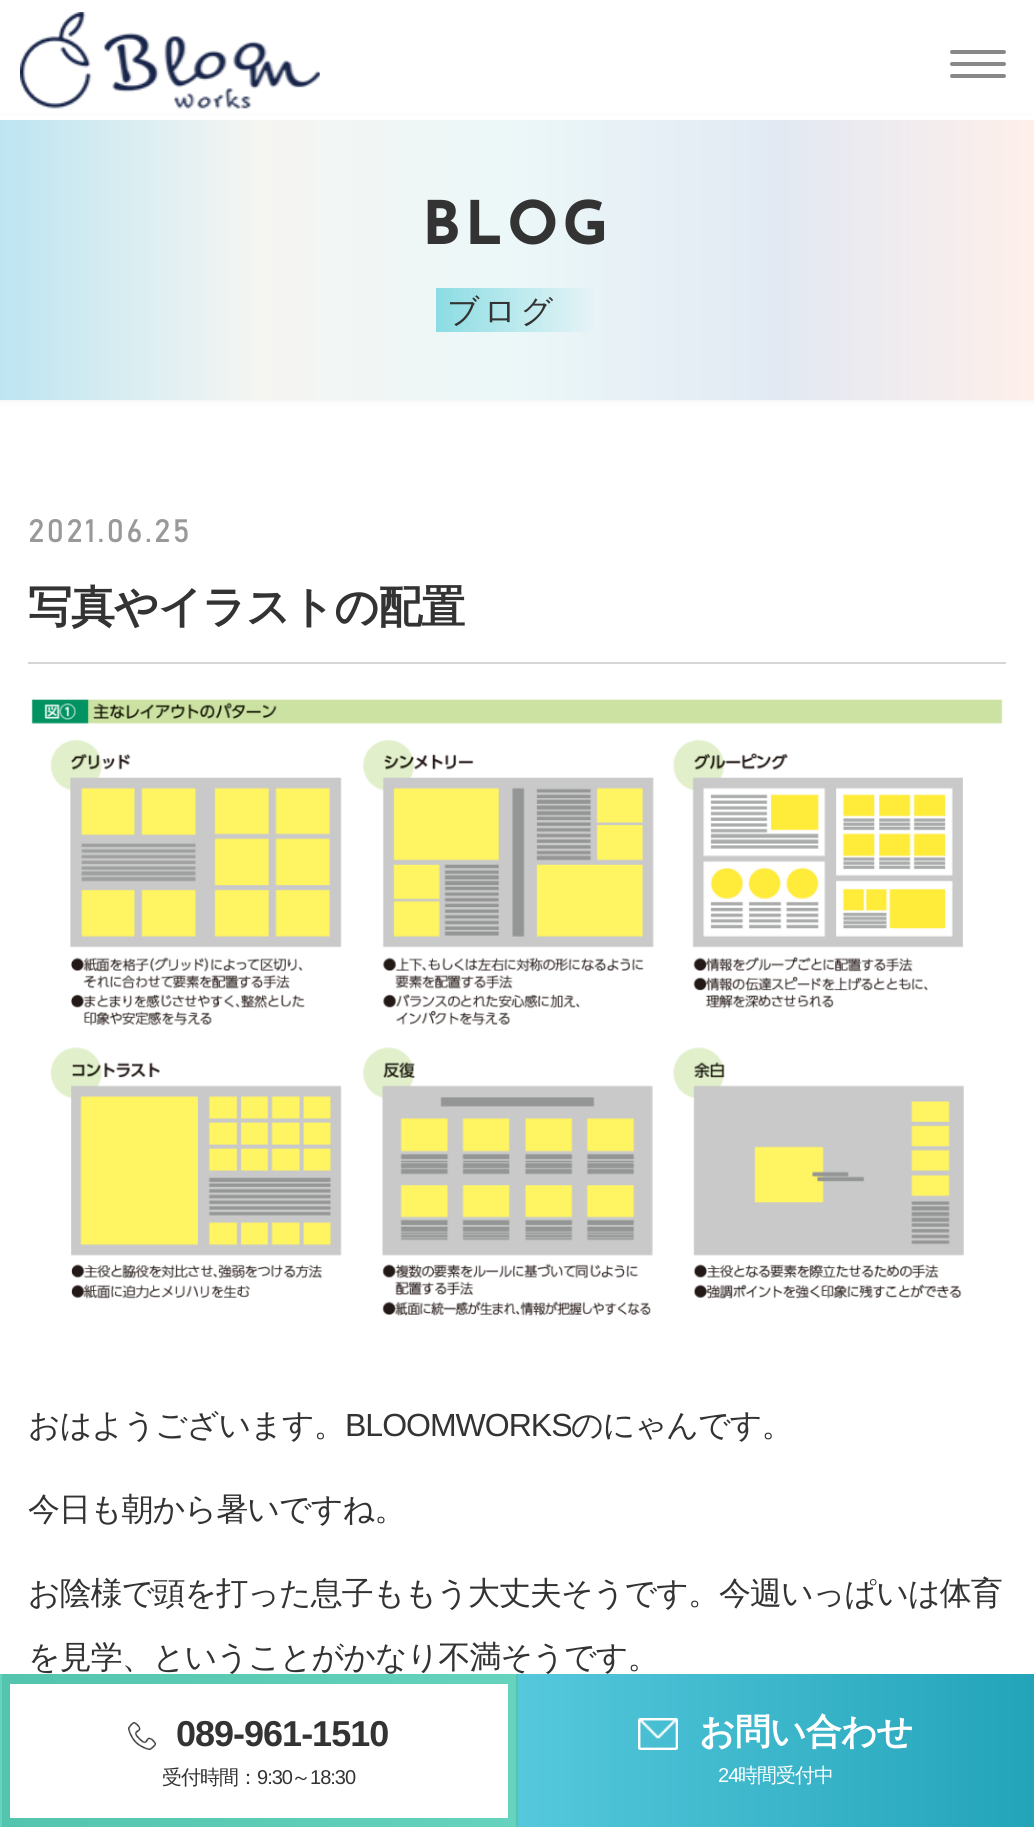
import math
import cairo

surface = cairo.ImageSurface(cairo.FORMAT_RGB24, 1034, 1827)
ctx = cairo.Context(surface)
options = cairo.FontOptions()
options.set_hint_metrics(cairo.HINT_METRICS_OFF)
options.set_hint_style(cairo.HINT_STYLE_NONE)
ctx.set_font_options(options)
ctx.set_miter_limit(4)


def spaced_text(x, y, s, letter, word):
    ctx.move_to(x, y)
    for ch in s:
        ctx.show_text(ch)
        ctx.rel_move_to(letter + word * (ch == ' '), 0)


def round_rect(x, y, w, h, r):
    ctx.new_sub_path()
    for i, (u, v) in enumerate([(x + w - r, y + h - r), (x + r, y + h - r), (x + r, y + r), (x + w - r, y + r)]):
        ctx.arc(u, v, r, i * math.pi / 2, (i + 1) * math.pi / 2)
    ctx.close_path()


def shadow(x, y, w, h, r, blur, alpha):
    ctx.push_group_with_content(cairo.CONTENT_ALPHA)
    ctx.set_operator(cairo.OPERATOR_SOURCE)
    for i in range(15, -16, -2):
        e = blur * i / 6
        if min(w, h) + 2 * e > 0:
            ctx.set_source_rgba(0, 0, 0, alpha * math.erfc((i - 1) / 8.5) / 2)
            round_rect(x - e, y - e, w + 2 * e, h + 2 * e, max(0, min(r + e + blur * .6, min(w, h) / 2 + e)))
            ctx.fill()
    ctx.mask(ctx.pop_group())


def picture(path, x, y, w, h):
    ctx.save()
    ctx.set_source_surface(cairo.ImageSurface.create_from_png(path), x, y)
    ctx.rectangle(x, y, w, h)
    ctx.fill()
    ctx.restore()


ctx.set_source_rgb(1, 1, 1)
ctx.paint()
ctx.set_source_rgb(0.933, 0.933, 0.933)
shadow(0, 120, 1034, 280, 0, 4, 1)
ctx.set_source_rgb(1, 1, 1)
ctx.rectangle(0, 116, 1034, 4)
ctx.fill()
picture("img1.png", 20, 12, 300, 97)
ctx.set_source_rgb(0.533, 0.533, 0.533)
round_rect(950, 50, 56, 4, 2)
ctx.fill()
round_rect(950, 62, 56, 4, 2)
ctx.fill()
round_rect(950, 74, 56, 4, 2)
ctx.fill()
gradient = cairo.LinearGradient(1034, 260, 0, 260)
gradient.add_color_stop_rgba(0, 0.996, 0.937, 0.918, 1)
gradient.add_color_stop_rgba(0.25, 0.886, 0.914, 0.953, 1)
gradient.add_color_stop_rgba(0.5, 0.922, 0.969, 0.973, 1)
gradient.add_color_stop_rgba(0.75, 0.961, 0.961, 0.949, 1)
gradient.add_color_stop_rgba(1, 0.741, 0.898, 0.945, 1)
ctx.set_source(gradient)
ctx.rectangle(0, 120, 1034, 280)
ctx.fill()
ctx.select_font_face("Josefin Sans", cairo.FONT_SLANT_NORMAL, cairo.FONT_WEIGHT_BOLD)
ctx.set_font_size(60)
ctx.set_source_rgb(0.2, 0.2, 0.2)
spaced_text(422, 244, "BLOG", 4, 0)
gradient = cairo.LinearGradient(436, 310, 598, 310)
gradient.add_color_stop_rgba(0, 0.541, 0.863, 0.89, 1)
gradient.add_color_stop_rgba(1, 0.541, 0.863, 0.89, 0)
ctx.set_source(gradient)
ctx.rectangle(436, 288, 157, 44)
ctx.fill()
ctx.select_font_face("WenQuanYi Zen Hei Medium")
ctx.set_font_size(32)
ctx.set_source_rgb(0.2, 0.2, 0.2)
spaced_text(447, 322, "ブログ", 4, 0)
ctx.select_font_face("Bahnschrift")
ctx.set_source_rgb(0.6, 0.6, 0.6)
spaced_text(28, 542, "2021.06.25", 2, 0)
ctx.set_source_rgb(0.835, 0.835, 0.835)
ctx.rectangle(28, 662, 978, 2)
ctx.fill()
ctx.select_font_face("WenQuanYi Zen Hei", cairo.FONT_SLANT_NORMAL, cairo.FONT_WEIGHT_BOLD)
ctx.set_font_size(44)
ctx.set_source_rgb(0.2, 0.2, 0.2)
spaced_text(28, 622, "写真やイラストの配置", -1, 0)
picture("img2.png", 31, 698, 972, 618)
ctx.select_font_face("WenQuanYi Zen Hei Medium")
ctx.set_font_size(32)
spaced_text(28, 1436, "おはようございます。", -1, 0)
ctx.select_font_face("Liberation Sans")
spaced_text(345, 1436, "BLOOMWORKS", -1, 0)
ctx.select_font_face("WenQuanYi Zen Hei Medium")
spaced_text(571, 1436, "のにゃんです。", -1, 0)
spaced_text(28, 1520, "今日も朝から暑いですね。", -1, 0)
spaced_text(28, 1604, "お陰様で頭を打った息子ももう大丈夫そうです。今週いっぱいは体育", -1, 0)
spaced_text(28, 1668, "を見学、ということがかなり不満そうです。", -1, 0)
gradient = cairo.LinearGradient(-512, 1751, 2, 1751)
gradient.add_color_stop_rgba(0, 0.325, 0.769, 0.678, 1)
gradient.add_color_stop_rgba(1, 0.396, 0.827, 0.741, 1)
ctx.set_source(gradient)
ctx.rectangle(0, 1674, 2, 153)
ctx.fill()
gradient = cairo.LinearGradient(2, 1751, 516, 1751)
gradient.add_color_stop_rgba(0, 0.325, 0.769, 0.678, 1)
gradient.add_color_stop_rgba(1, 0.396, 0.827, 0.741, 1)
ctx.set_source(gradient)
ctx.rectangle(2, 1674, 514, 153)
ctx.fill()
gradient = cairo.LinearGradient(516, 1751, 1030, 1751)
gradient.add_color_stop_rgba(0, 0.325, 0.769, 0.678, 1)
gradient.add_color_stop_rgba(1, 0.396, 0.827, 0.741, 1)
ctx.set_source(gradient)
ctx.rectangle(516, 1674, 2, 153)
ctx.fill()
ctx.set_source_rgb(1, 1, 1)
ctx.rectangle(10, 1684, 498, 134)
ctx.fill()
picture("img3.png", 128, 1722, 28, 28)
ctx.select_font_face("Liberation Sans", cairo.FONT_SLANT_NORMAL, cairo.FONT_WEIGHT_BOLD)
ctx.set_font_size(36)
ctx.set_source_rgb(0.2, 0.2, 0.2)
spaced_text(176, 1746, "089-961-1510", -1, 0)
ctx.select_font_face("WenQuanYi Zen Hei Medium")
ctx.set_font_size(20)
spaced_text(162, 1784, "受付時間：", -1, 0)
ctx.select_font_face("Liberation Sans")
spaced_text(257, 1784, "9:30", -1, 0)
ctx.select_font_face("WenQuanYi Zen Hei Medium")
spaced_text(291, 1784, "～", -1, 0)
ctx.select_font_face("Liberation Sans")
spaced_text(310, 1784, "18:30", -1, 0)
gradient = cairo.LinearGradient(518, 1751, 1034, 1751)
gradient.add_color_stop_rgba(0, 0.333, 0.784, 0.863, 1)
gradient.add_color_stop_rgba(1, 0.137, 0.643, 0.725, 1)
ctx.set_source(gradient)
ctx.rectangle(518, 1674, 516, 153)
ctx.fill()
picture("img4.png", 638, 1718, 40, 32)
ctx.select_font_face("WenQuanYi Zen Hei", cairo.FONT_SLANT_NORMAL, cairo.FONT_WEIGHT_BOLD)
ctx.set_font_size(36)
ctx.set_source_rgb(1, 1, 1)
spaced_text(699, 1744, "お問い合わせ", -1, 0)
ctx.select_font_face("Liberation Sans")
ctx.set_font_size(20)
spaced_text(718, 1782, "24", -1, 0)
ctx.select_font_face("WenQuanYi Zen Hei Medium")
spaced_text(738, 1782, "時間受付中", -1, 0)
surface.write_to_png("page.png")
